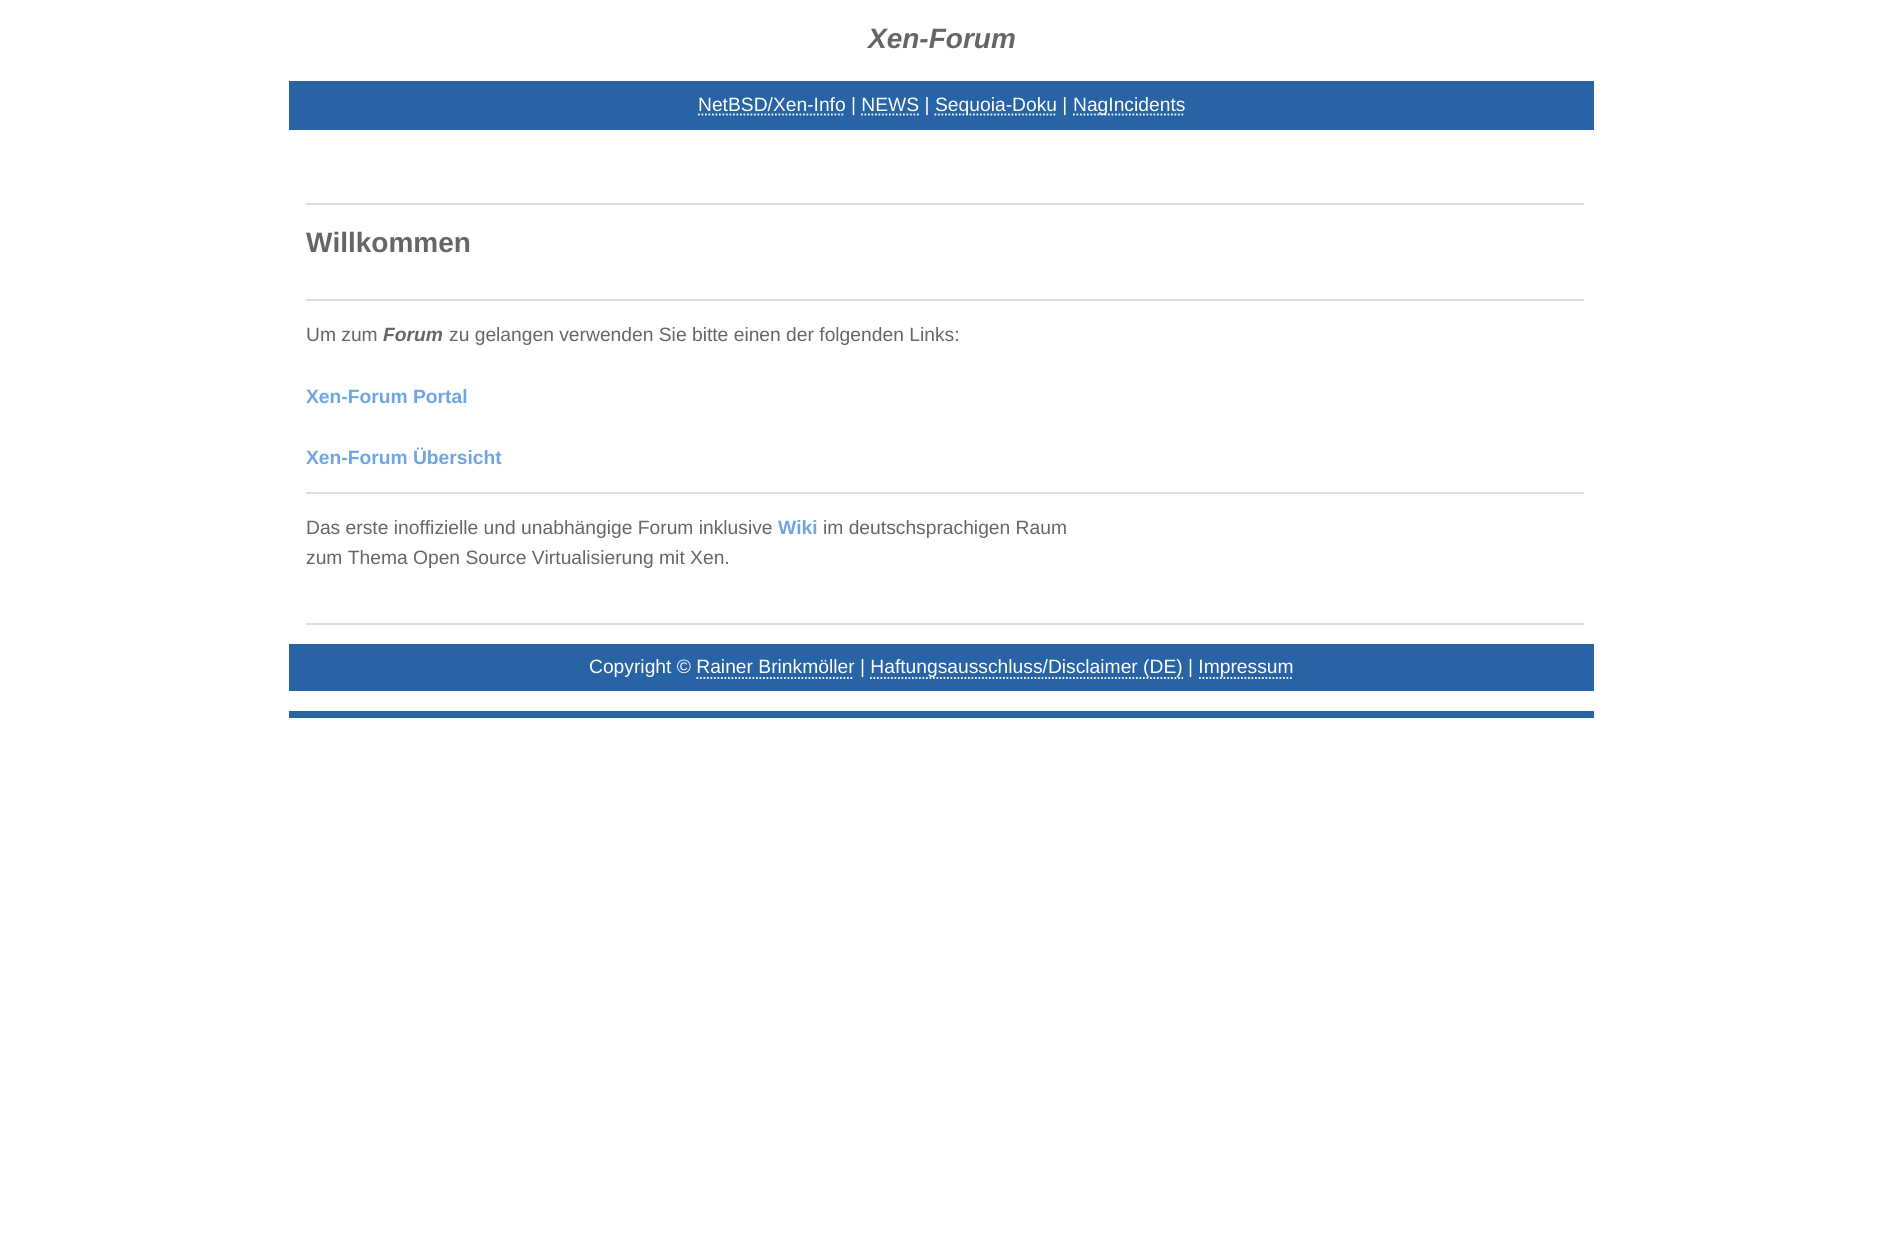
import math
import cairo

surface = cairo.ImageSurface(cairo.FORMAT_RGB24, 1883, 1244)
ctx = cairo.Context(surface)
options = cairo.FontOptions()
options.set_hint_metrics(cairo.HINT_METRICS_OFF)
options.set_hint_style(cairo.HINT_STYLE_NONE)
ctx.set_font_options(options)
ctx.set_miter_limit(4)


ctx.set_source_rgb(1, 1, 1)
ctx.paint()
ctx.select_font_face("Liberation Sans", cairo.FONT_SLANT_ITALIC, cairo.FONT_WEIGHT_BOLD)
ctx.set_font_size(28)
ctx.set_source_rgb(0.4, 0.4, 0.4)
ctx.move_to(868, 48)
ctx.show_text("Xen-Forum")
ctx.set_source_rgb(0.153, 0.388, 0.647)
ctx.rectangle(289, 711, 1305, 7)
ctx.fill()
ctx.rectangle(289, 81, 1305, 49)
ctx.fill()
ctx.new_path()
ctx.move_to(698, 114.5)
ctx.line_to(845, 114.5)
ctx.set_source_rgb(1, 1, 1)
ctx.set_line_width(1.8)
ctx.set_dash([1.75, 1.75])
ctx.stroke()
ctx.select_font_face("Liberation Sans")
ctx.set_font_size(19.25)
ctx.move_to(698, 111)
ctx.show_text("NetBSD/Xen-Info | NEWS |")
ctx.new_path()
ctx.move_to(934.5, 114.5)
ctx.line_to(1057, 114.5)
ctx.stroke()
ctx.move_to(935, 111)
ctx.show_text("Sequoia-Doku |")
ctx.new_path()
ctx.move_to(1073, 114.5)
ctx.line_to(1185, 114.5)
ctx.stroke()
ctx.move_to(1073, 111)
ctx.show_text("NagIncidents")
ctx.new_path()
ctx.move_to(861, 114.5)
ctx.line_to(919, 114.5)
ctx.stroke()
ctx.set_source_rgb(0.867, 0.867, 0.867)
ctx.rectangle(306, 203, 1278, 2)
ctx.fill()
ctx.select_font_face("Liberation Sans", cairo.FONT_SLANT_NORMAL, cairo.FONT_WEIGHT_BOLD)
ctx.set_font_size(28)
ctx.set_source_rgb(0.4, 0.4, 0.4)
ctx.move_to(306, 252)
ctx.show_text("Willkommen")
ctx.set_source_rgb(0.867, 0.867, 0.867)
ctx.rectangle(306, 299, 1278, 2)
ctx.fill()
ctx.rectangle(306, 492, 1278, 2)
ctx.fill()
ctx.select_font_face("Liberation Sans")
ctx.set_font_size(19.25)
ctx.set_source_rgb(0.4, 0.4, 0.4)
ctx.move_to(306, 341)
ctx.show_text("Um zum")
ctx.select_font_face("Liberation Sans", cairo.FONT_SLANT_ITALIC, cairo.FONT_WEIGHT_BOLD)
ctx.move_to(383, 341)
ctx.show_text("Forum")
ctx.select_font_face("Liberation Sans")
ctx.move_to(449, 341)
ctx.show_text("zu gelangen verwenden Sie bitte einen der folgenden Links:")
ctx.select_font_face("Liberation Sans", cairo.FONT_SLANT_NORMAL, cairo.FONT_WEIGHT_BOLD)
ctx.set_source_rgb(0.427, 0.651, 0.886)
ctx.move_to(306, 403)
ctx.show_text("Xen-Forum Portal")
ctx.move_to(306, 464)
ctx.show_text("Xen-Forum Übersicht")
ctx.set_source_rgb(0.867, 0.867, 0.867)
ctx.rectangle(306, 623, 1278, 2)
ctx.fill()
ctx.select_font_face("Liberation Sans")
ctx.set_source_rgb(0.4, 0.4, 0.4)
ctx.move_to(306, 534)
ctx.show_text("Das erste inoffizielle und unabhängige Forum inklusive")
ctx.select_font_face("Liberation Sans", cairo.FONT_SLANT_NORMAL, cairo.FONT_WEIGHT_BOLD)
ctx.set_source_rgb(0.427, 0.651, 0.886)
ctx.move_to(778, 534)
ctx.show_text("Wiki")
ctx.select_font_face("Liberation Sans")
ctx.set_source_rgb(0.4, 0.4, 0.4)
ctx.move_to(823, 534)
ctx.show_text("im deutschsprachigen Raum")
ctx.move_to(306, 564)
ctx.show_text("zum Thema Open Source Virtualisierung mit Xen.")
ctx.set_source_rgb(0.153, 0.388, 0.647)
ctx.rectangle(289, 644, 1305, 47)
ctx.fill()
ctx.set_source_rgb(1, 1, 1)
ctx.move_to(589, 673)
ctx.show_text("Copyright © Rainer Brinkmöller | Haftungsausschluss/Disclaimer (DE) | Impressum")
ctx.new_path()
ctx.move_to(696.5, 678)
ctx.line_to(854, 678)
ctx.stroke()
ctx.new_path()
ctx.move_to(870, 678)
ctx.line_to(1183, 678)
ctx.stroke()
ctx.new_path()
ctx.move_to(1199, 678)
ctx.line_to(1293, 678)
ctx.stroke()
surface.write_to_png("page.png")
